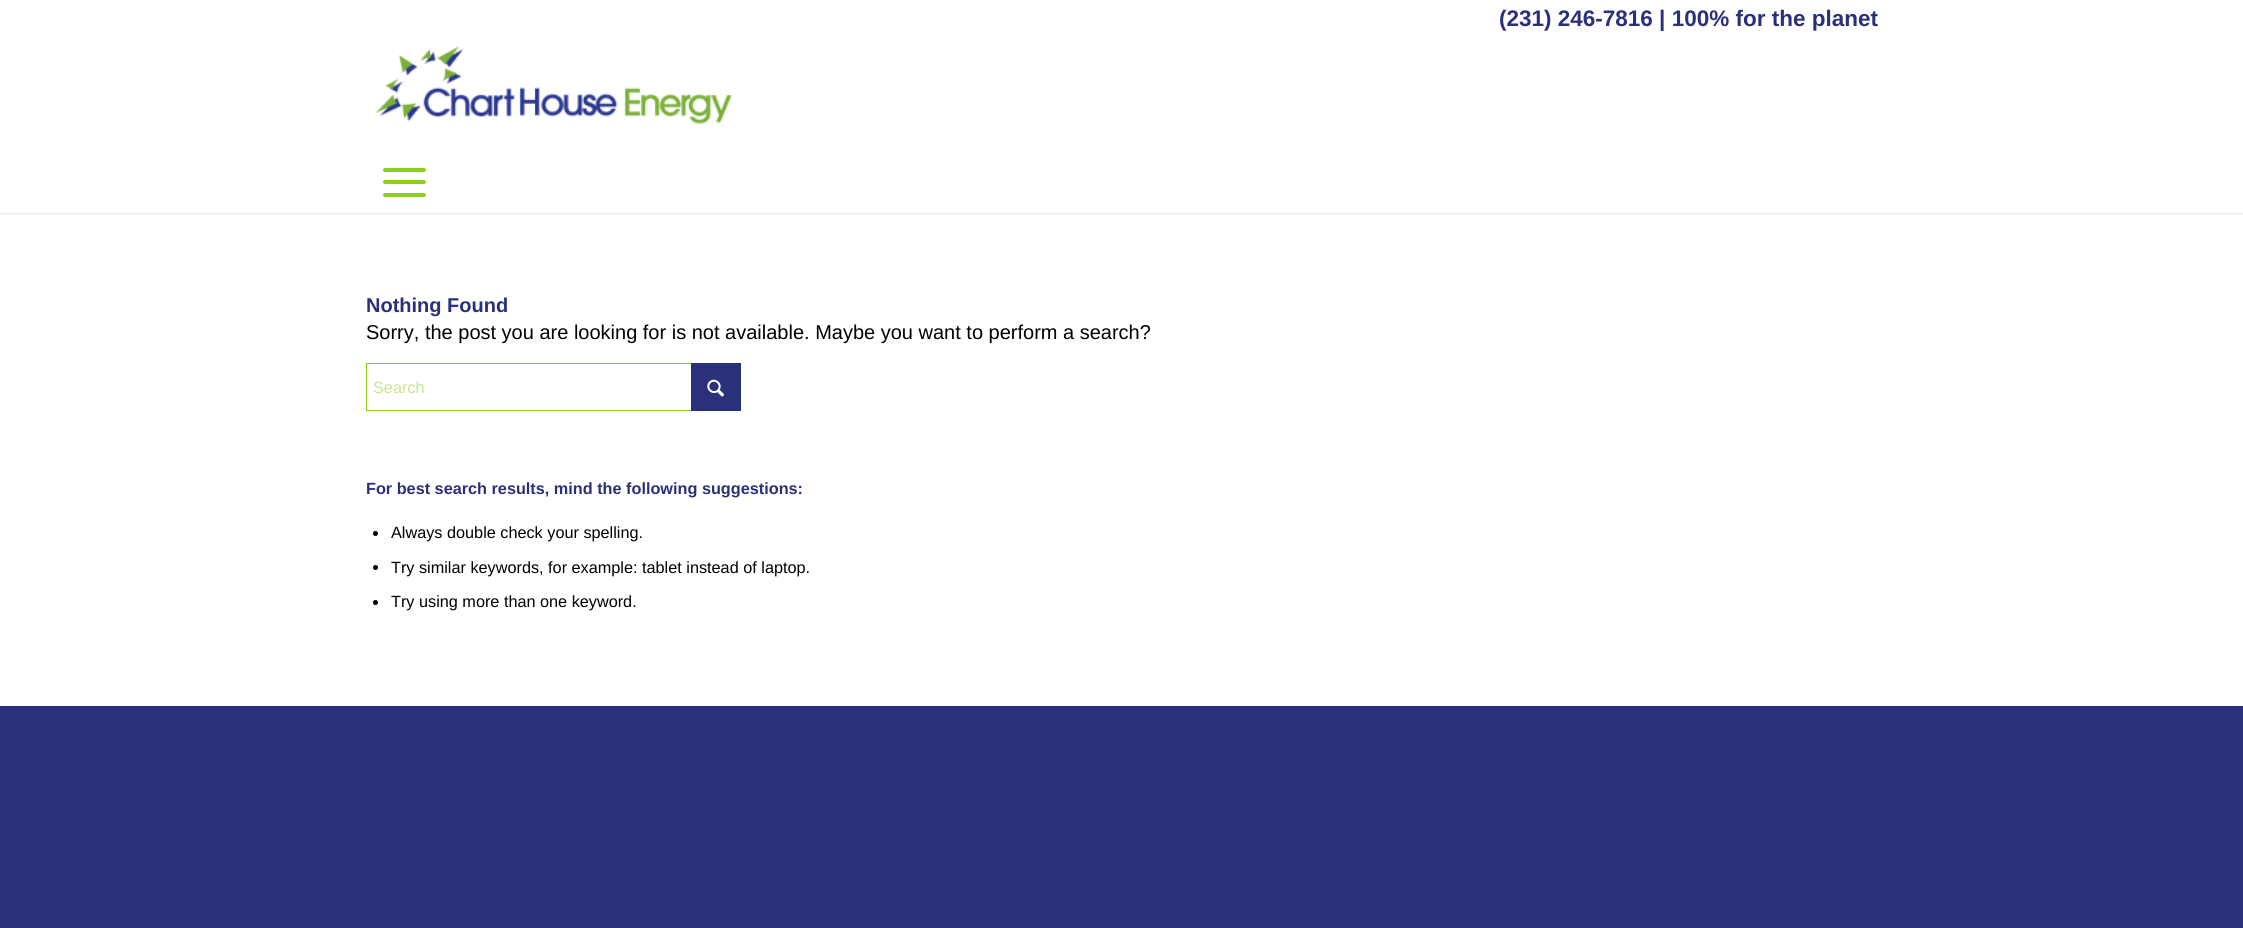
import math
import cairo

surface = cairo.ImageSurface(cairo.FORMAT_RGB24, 2243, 928)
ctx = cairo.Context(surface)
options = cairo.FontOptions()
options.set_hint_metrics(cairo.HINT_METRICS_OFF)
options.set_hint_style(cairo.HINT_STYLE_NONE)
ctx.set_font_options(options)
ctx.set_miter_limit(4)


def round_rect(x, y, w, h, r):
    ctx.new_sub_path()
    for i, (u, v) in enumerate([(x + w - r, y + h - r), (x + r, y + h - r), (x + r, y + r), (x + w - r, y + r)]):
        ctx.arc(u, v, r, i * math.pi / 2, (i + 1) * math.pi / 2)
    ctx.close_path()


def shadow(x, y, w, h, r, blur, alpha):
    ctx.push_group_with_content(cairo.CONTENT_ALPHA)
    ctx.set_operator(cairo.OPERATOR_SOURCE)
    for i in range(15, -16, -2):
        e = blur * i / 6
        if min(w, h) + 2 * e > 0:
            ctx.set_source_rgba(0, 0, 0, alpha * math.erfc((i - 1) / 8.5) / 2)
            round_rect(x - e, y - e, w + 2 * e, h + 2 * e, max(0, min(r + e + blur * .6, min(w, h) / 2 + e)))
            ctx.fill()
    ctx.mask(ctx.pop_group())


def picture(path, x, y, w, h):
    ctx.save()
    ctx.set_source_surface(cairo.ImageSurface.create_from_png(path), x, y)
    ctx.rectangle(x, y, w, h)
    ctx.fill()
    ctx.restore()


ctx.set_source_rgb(0.169, 0.188, 0.478)
ctx.paint()
ctx.set_source_rgb(1, 1, 1)
ctx.rectangle(0, 213, 2243, 493)
ctx.fill()
ctx.set_source_rgb(0, 0, 0)
shadow(-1, -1, 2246, 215, 0, 1, 0.1)
ctx.set_source_rgb(1, 1, 1)
ctx.rectangle(0, 0, 2243, 213)
ctx.fill()
ctx.select_font_face("Liberation Sans", cairo.FONT_SLANT_NORMAL, cairo.FONT_WEIGHT_BOLD)
ctx.set_font_size(22.5)
ctx.set_source_rgb(0.169, 0.188, 0.478)
ctx.move_to(1499, 26)
ctx.show_text("(231) 246-7816 | 100% for the planet")
picture("img1.png", 375, 46, 358, 78)
ctx.set_source_rgb(0.545, 0.82, 0.106)
round_rect(383, 180, 43, 4, 2)
ctx.fill()
round_rect(383, 168, 43, 4, 2)
ctx.fill()
round_rect(383, 193, 43, 4, 2)
ctx.fill()
ctx.set_font_size(20)
ctx.set_source_rgb(0.169, 0.188, 0.478)
ctx.move_to(366, 312)
ctx.show_text("Nothing Found")
ctx.select_font_face("Liberation Sans")
ctx.set_source_rgb(0, 0, 0)
ctx.move_to(366, 339)
ctx.show_text("Sorry, the post you are looking for is not available. Maybe you want to perform a search?")
ctx.rectangle(366.5, 363.5, 374, 47)
ctx.set_source_rgb(0.545, 0.82, 0.106)
ctx.set_line_width(1)
ctx.stroke()
ctx.set_source_rgb(0.169, 0.188, 0.478)
ctx.rectangle(691, 363, 50, 48)
ctx.fill()
ctx.set_font_size(16.25)
ctx.set_source_rgb(0.773, 0.91, 0.553)
ctx.move_to(373, 393)
ctx.show_text("Search")
picture("img2.png", 707, 379, 17, 18)
ctx.select_font_face("Liberation Sans", cairo.FONT_SLANT_NORMAL, cairo.FONT_WEIGHT_BOLD)
ctx.set_source_rgb(0.169, 0.188, 0.478)
ctx.move_to(366, 494)
ctx.show_text("For best search results, mind the following suggestions:")
ctx.set_source_rgb(0, 0, 0)
ctx.new_path()
ctx.arc(375.5, 533.5, 2.5, 0, 2 * math.pi)
ctx.fill()
ctx.select_font_face("Liberation Sans")
ctx.move_to(391, 538)
ctx.show_text("Always double check your spelling.")
ctx.new_path()
ctx.arc(375.5, 567.5, 2.5, 0, 2 * math.pi)
ctx.fill()
ctx.move_to(391, 573)
ctx.show_text("Try similar keywords, for example: tablet instead of laptop.")
ctx.new_path()
ctx.arc(375.5, 602.5, 2.5, 0, 2 * math.pi)
ctx.fill()
ctx.move_to(391, 607)
ctx.show_text("Try using more than one keyword.")
surface.write_to_png("page.png")
